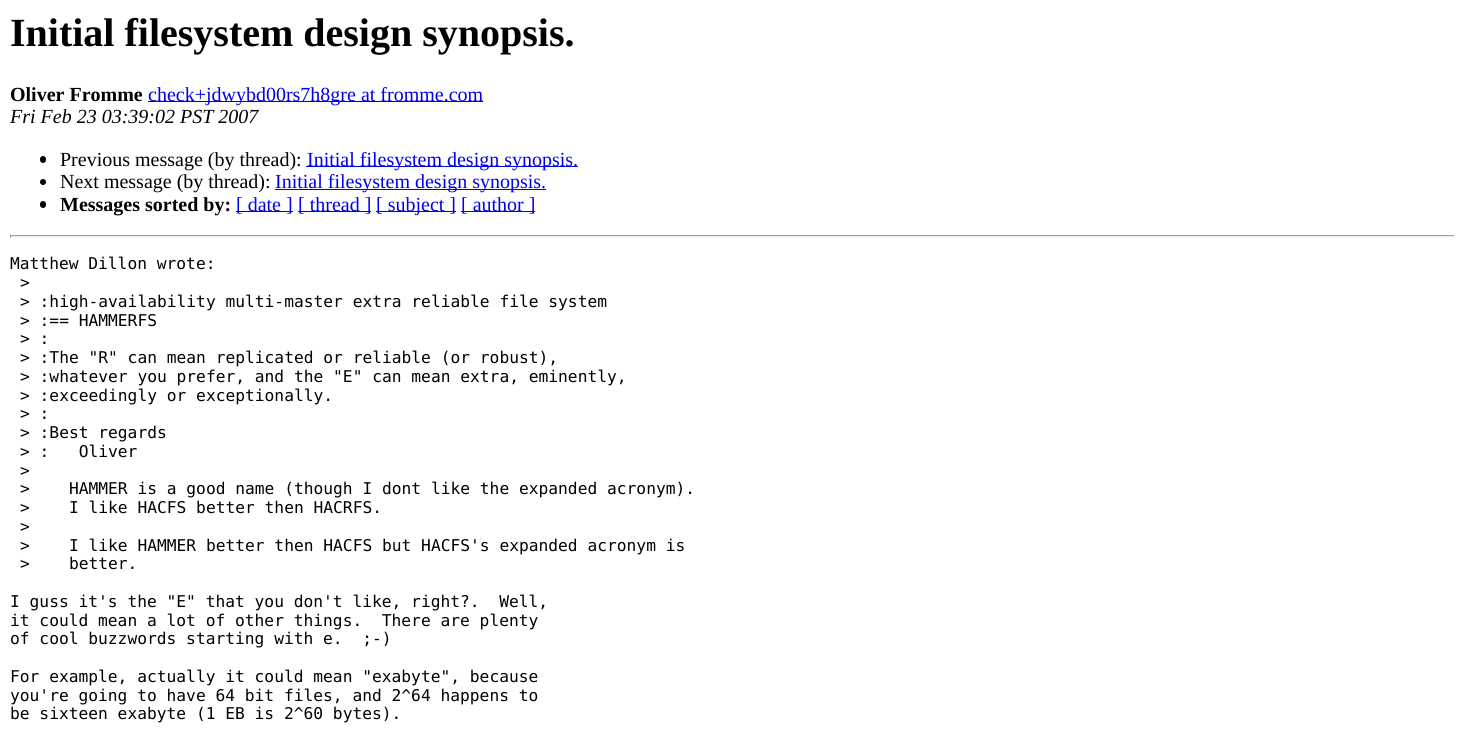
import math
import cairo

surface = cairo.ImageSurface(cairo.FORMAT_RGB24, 1465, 744)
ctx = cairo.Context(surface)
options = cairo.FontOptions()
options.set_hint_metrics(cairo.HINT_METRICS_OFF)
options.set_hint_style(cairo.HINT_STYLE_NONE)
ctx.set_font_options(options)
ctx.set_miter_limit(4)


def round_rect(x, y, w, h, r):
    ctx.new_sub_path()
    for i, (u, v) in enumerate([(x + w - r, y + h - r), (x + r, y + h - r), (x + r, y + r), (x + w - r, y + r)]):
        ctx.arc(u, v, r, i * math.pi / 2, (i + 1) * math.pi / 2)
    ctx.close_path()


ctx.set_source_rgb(1, 1, 1)
ctx.paint()
ctx.select_font_face("Liberation Serif", cairo.FONT_SLANT_NORMAL, cairo.FONT_WEIGHT_BOLD)
ctx.set_font_size(40)
ctx.set_source_rgb(0, 0, 0)
ctx.move_to(10, 46)
ctx.show_text("Initial filesystem design synopsis.")
ctx.set_font_size(20)
ctx.move_to(10, 101)
ctx.show_text("Oliver Fromme")
ctx.set_source_rgb(0, 0, 0.933)
ctx.rectangle(148, 101, 335, 1)
ctx.fill()
ctx.select_font_face("Liberation Serif")
ctx.move_to(148, 101)
ctx.show_text("check+jdwybd00rs7h8gre at fromme.com")
ctx.select_font_face("Liberation Serif", cairo.FONT_SLANT_ITALIC)
ctx.set_source_rgb(0, 0, 0)
ctx.move_to(10, 123)
ctx.show_text("Fri Feb 23 03:39:02 PST 2007")
round_rect(40, 156, 6, 7, 3)
ctx.fill()
ctx.select_font_face("Liberation Serif")
ctx.move_to(60, 166)
ctx.show_text("Previous message (by thread):")
ctx.set_source_rgb(0, 0, 0.933)
ctx.rectangle(306, 166, 272, 1)
ctx.fill()
ctx.move_to(307, 166)
ctx.show_text("Initial filesystem design synopsis.")
ctx.set_source_rgb(0, 0, 0)
ctx.new_path()
ctx.arc(43, 182, 3, 0, 2 * math.pi)
ctx.fill()
ctx.move_to(60, 188)
ctx.show_text("Next message (by thread):")
ctx.set_source_rgb(0, 0, 0.933)
ctx.rectangle(275, 189, 271, 1)
ctx.fill()
ctx.move_to(275, 188)
ctx.show_text("Initial filesystem design synopsis.")
ctx.set_source_rgb(0, 0, 0)
round_rect(40, 201, 6, 7, 3)
ctx.fill()
ctx.select_font_face("Liberation Serif", cairo.FONT_SLANT_NORMAL, cairo.FONT_WEIGHT_BOLD)
ctx.move_to(60, 211)
ctx.show_text("Messages sorted by:")
ctx.set_source_rgb(0, 0, 0.933)
ctx.rectangle(236, 211, 57, 1)
ctx.fill()
ctx.select_font_face("Liberation Serif")
ctx.move_to(236, 211)
ctx.show_text("[ date ]")
ctx.rectangle(298, 211, 73, 1)
ctx.fill()
ctx.move_to(298, 211)
ctx.show_text("[ thread ]")
ctx.rectangle(376, 211, 80, 1)
ctx.fill()
ctx.move_to(376, 211)
ctx.show_text("[ subject ]")
ctx.rectangle(461, 211, 74, 1)
ctx.fill()
ctx.move_to(461, 211)
ctx.show_text("[ author ]")
ctx.set_source_rgb(0.624, 0.624, 0.624)
ctx.rectangle(10, 235, 1445, 1)
ctx.fill()
ctx.set_source_rgb(0.933, 0.933, 0.933)
ctx.rectangle(1454, 235, 1, 3)
ctx.fill()
ctx.rectangle(10, 236, 1445, 1)
ctx.fill()
ctx.set_source_rgb(0.624, 0.624, 0.624)
ctx.rectangle(10, 235, 1, 3)
ctx.fill()
ctx.select_font_face("DejaVu Sans Mono")
ctx.set_font_size(16.25)
ctx.set_source_rgb(0, 0, 0)
ctx.move_to(10, 269)
ctx.show_text("Matthew Dillon wrote:")
ctx.move_to(20, 288)
ctx.show_text(">")
ctx.move_to(20, 307)
ctx.show_text("> :high-availability multi-master extra reliable file system")
ctx.move_to(20, 326)
ctx.show_text("> :== HAMMERFS")
ctx.move_to(20, 344)
ctx.show_text("> :")
ctx.move_to(20, 363)
ctx.show_text("> :The \"R\" can mean replicated or reliable (or robust),")
ctx.move_to(20, 382)
ctx.show_text("> :whatever you prefer, and the \"E\" can mean extra, eminently,")
ctx.move_to(20, 401)
ctx.show_text("> :exceedingly or exceptionally.")
ctx.move_to(20, 419)
ctx.show_text("> :")
ctx.move_to(20, 438)
ctx.show_text("> :Best regards")
ctx.move_to(20, 457)
ctx.show_text("> :   Oliver")
ctx.move_to(20, 476)
ctx.show_text(">")
ctx.move_to(20, 494)
ctx.show_text(">    HAMMER is a good name (though I dont like the expanded acronym).")
ctx.move_to(20, 513)
ctx.show_text(">    I like HACFS better then HACRFS.")
ctx.move_to(20, 532)
ctx.show_text(">")
ctx.move_to(20, 551)
ctx.show_text(">    I like HAMMER better then HACFS but HACFS's expanded acronym is")
ctx.move_to(20, 569)
ctx.show_text(">    better.")
ctx.move_to(10, 607)
ctx.show_text("I guss it's the \"E\" that you don't like, right?.  Well,")
ctx.move_to(10, 626)
ctx.show_text("it could mean a lot of other things.  There are plenty")
ctx.move_to(10, 644)
ctx.show_text("of cool buzzwords starting with e.  ;-)")
ctx.move_to(10, 682)
ctx.show_text("For example, actually it could mean \"exabyte\", because")
ctx.move_to(10, 701)
ctx.show_text("you're going to have 64 bit files, and 2^64 happens to")
ctx.move_to(10, 719)
ctx.show_text("be sixteen exabyte (1 EB is 2^60 bytes).")
surface.write_to_png("page.png")
